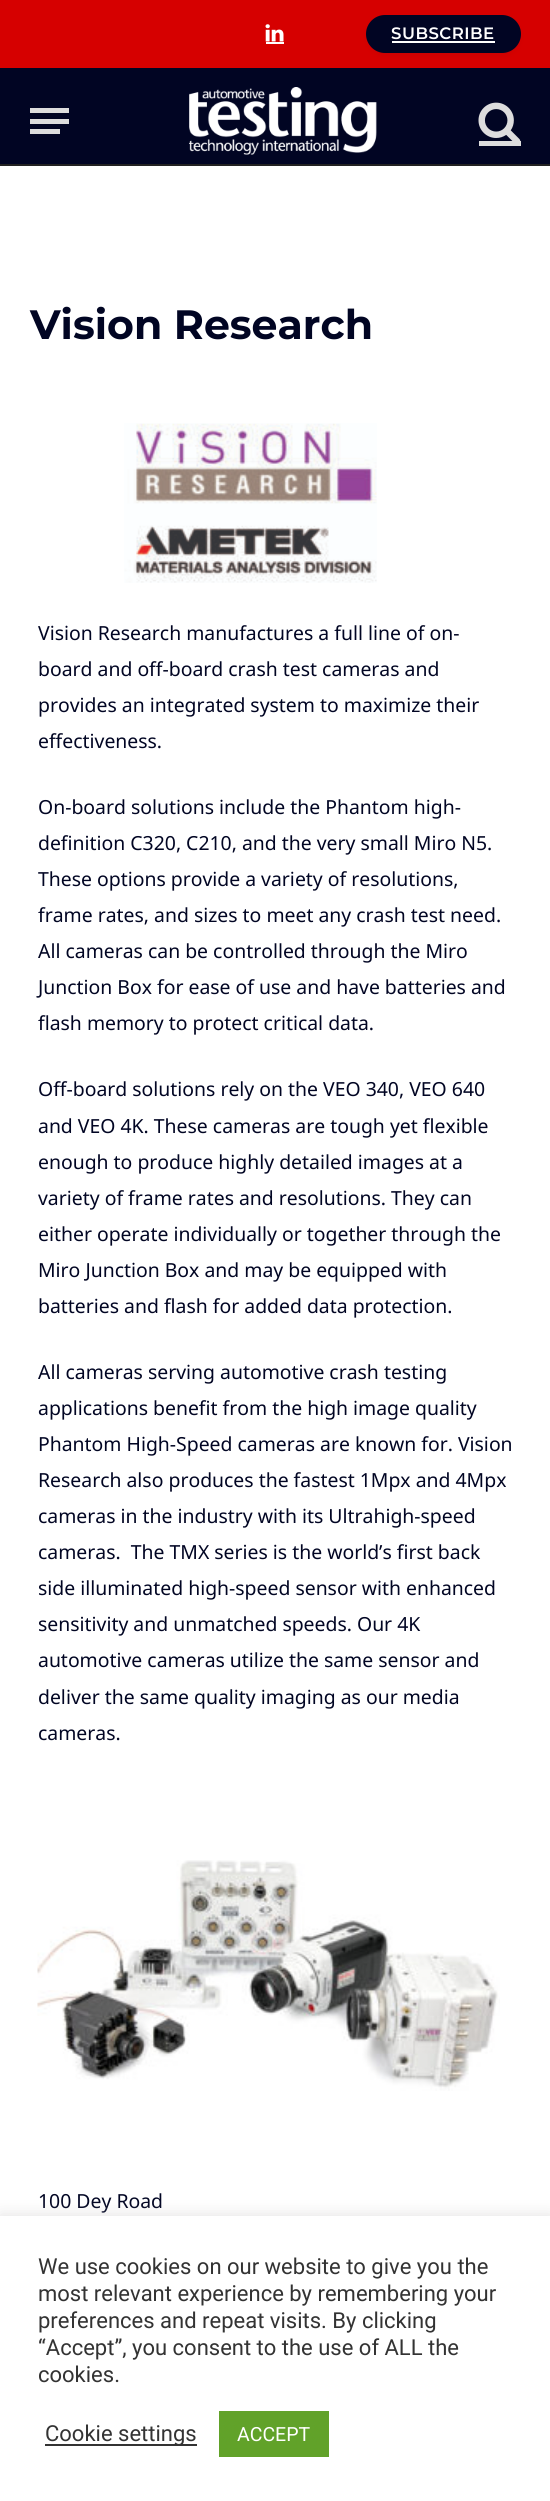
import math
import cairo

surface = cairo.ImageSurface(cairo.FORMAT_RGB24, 550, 2501)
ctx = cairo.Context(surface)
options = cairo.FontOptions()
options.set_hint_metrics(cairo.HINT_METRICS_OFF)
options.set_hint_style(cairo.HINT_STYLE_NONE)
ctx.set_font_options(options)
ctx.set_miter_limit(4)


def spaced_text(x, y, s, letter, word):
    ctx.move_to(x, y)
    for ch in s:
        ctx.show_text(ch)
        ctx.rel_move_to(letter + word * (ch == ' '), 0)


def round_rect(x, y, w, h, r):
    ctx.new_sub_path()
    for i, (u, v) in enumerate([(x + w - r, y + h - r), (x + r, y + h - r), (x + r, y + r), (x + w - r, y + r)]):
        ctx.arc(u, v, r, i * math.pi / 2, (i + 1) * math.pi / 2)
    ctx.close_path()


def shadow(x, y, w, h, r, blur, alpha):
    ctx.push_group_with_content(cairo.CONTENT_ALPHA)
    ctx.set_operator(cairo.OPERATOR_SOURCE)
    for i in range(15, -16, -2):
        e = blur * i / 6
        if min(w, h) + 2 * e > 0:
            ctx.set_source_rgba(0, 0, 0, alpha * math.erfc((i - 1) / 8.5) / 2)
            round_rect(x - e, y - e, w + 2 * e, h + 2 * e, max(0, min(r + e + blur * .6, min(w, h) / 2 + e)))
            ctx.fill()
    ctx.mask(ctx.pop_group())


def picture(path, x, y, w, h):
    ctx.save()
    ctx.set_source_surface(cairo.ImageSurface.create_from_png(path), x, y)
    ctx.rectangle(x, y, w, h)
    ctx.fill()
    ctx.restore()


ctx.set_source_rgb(1, 1, 1)
ctx.paint()
ctx.set_source_rgb(0.839, 0, 0)
ctx.rectangle(0, 0, 550, 68)
ctx.fill()
picture("img1.png", 265, 24, 19, 18)
ctx.set_source_rgb(1, 1, 1)
ctx.rectangle(266, 42, 18, 2)
ctx.fill()
ctx.set_source_rgb(0, 0, 0)
shadow(372, 24, 143, 26, 13, 5, 0.16)
ctx.set_source_rgb(0.004, 0.02, 0.137)
round_rect(366, 15, 155, 38, 19)
ctx.fill()
ctx.select_font_face("Montserrat SemiBold")
ctx.set_font_size(16.5)
ctx.set_source_rgb(1, 1, 1)
spaced_text(391, 39, "SUBSCRIBE", 0.5, 0)
ctx.rectangle(392, 41, 103, 2)
ctx.fill()
ctx.set_source_rgb(0.004, 0.02, 0.137)
ctx.rectangle(0, 68, 550, 96)
ctx.fill()
ctx.set_source_rgb(0.133, 0.133, 0.133)
ctx.rectangle(0, 164, 550, 2)
ctx.fill()
ctx.set_source_rgb(0.867, 0.867, 0.867)
ctx.rectangle(30, 129, 30, 5)
ctx.fill()
ctx.rectangle(30, 108, 39, 5)
ctx.fill()
ctx.rectangle(30, 119, 39, 5)
ctx.fill()
picture("img2.png", 189, 87, 188, 68)
picture("img3.png", 478, 102, 43, 39)
ctx.rectangle(479, 141, 42, 5)
ctx.fill()
ctx.select_font_face("Montserrat", cairo.FONT_SLANT_NORMAL, cairo.FONT_WEIGHT_BOLD)
ctx.set_font_size(41)
ctx.set_source_rgb(0.004, 0.02, 0.137)
ctx.move_to(30, 339)
ctx.show_text("Vision Research")
picture("img4.png", 124, 423, 253, 160)
ctx.select_font_face("Noto Sans")
ctx.set_font_size(19.4)
ctx.move_to(38, 640)
ctx.show_text("Vision Research manufactures a full line of on-")
ctx.move_to(38, 676)
ctx.show_text("board and off-board crash test cameras and")
ctx.move_to(38, 712)
ctx.show_text("provides an integrated system to maximize their")
ctx.move_to(38, 748)
ctx.show_text("effectiveness.")
ctx.move_to(38, 814)
ctx.show_text("On-board solutions include the Phantom high-")
ctx.move_to(38, 850)
ctx.show_text("definition C320, C210, and the very small Miro N5.")
ctx.move_to(38, 886)
ctx.show_text("These options provide a variety of resolutions,")
ctx.move_to(38, 922)
ctx.show_text("frame rates, and sizes to meet any crash test need.")
ctx.move_to(38, 958)
ctx.show_text("All cameras can be controlled through the Miro")
ctx.move_to(38, 994)
ctx.show_text("Junction Box for ease of use and have batteries and")
ctx.move_to(38, 1030)
ctx.show_text("flash memory to protect critical data.")
ctx.move_to(38, 1096)
ctx.show_text("Off-board solutions rely on the VEO 340, VEO 640")
ctx.move_to(38, 1133)
ctx.show_text("and VEO 4K. These cameras are tough yet flexible")
ctx.move_to(38, 1169)
ctx.show_text("enough to produce highly detailed images at a")
ctx.move_to(38, 1205)
ctx.show_text("variety of frame rates and resolutions. They can")
ctx.move_to(38, 1241)
ctx.show_text("either operate individually or together through the")
ctx.move_to(38, 1277)
ctx.show_text("Miro Junction Box and may be equipped with")
ctx.move_to(38, 1313)
ctx.show_text("batteries and flash for added data protection.")
ctx.move_to(38, 1379)
ctx.show_text("All cameras serving automotive crash testing")
ctx.move_to(38, 1415)
ctx.show_text("applications benefit from the high image quality")
ctx.move_to(38, 1451)
ctx.show_text("Phantom High-Speed cameras are known for. Vision")
ctx.move_to(38, 1487)
ctx.show_text("Research also produces the fastest 1Mpx and 4Mpx")
ctx.move_to(38, 1523)
ctx.show_text("cameras in the industry with its Ultrahigh-speed")
ctx.move_to(38, 1559)
ctx.show_text("cameras.  The TMX series is the world’s first back")
ctx.move_to(38, 1595)
ctx.show_text("side illuminated high-speed sensor with enhanced")
ctx.move_to(38, 1631)
ctx.show_text("sensitivity and unmatched speeds. Our 4K")
ctx.move_to(38, 1667)
ctx.show_text("automotive cameras utilize the same sensor and")
ctx.move_to(38, 1704)
ctx.show_text("deliver the same quality imaging as our media")
ctx.move_to(38, 1740)
ctx.show_text("cameras.")
picture("img5.png", 37, 1860, 463, 231)
ctx.move_to(38, 2208)
ctx.show_text("100 Dey Road")
ctx.set_source_rgb(0.675, 0.671, 0.671)
shadow(0, 2214, 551, 287, 0, 7.5, 0.3)
ctx.set_source_rgb(1, 1, 1)
ctx.rectangle(0, 2216, 550, 285)
ctx.fill()
ctx.select_font_face("Roboto")
ctx.set_font_size(22)
ctx.set_source_rgb(0.2, 0.2, 0.2)
ctx.move_to(38, 2274)
ctx.show_text("We use cookies on our website to give you the")
ctx.move_to(38, 2301)
ctx.show_text("most relevant experience by remembering your")
ctx.move_to(38, 2328)
ctx.show_text("preferences and repeat visits. By clicking")
ctx.move_to(38, 2355)
ctx.show_text("“Accept”, you consent to the use of ALL the")
ctx.move_to(38, 2382)
ctx.show_text("cookies.")
ctx.rectangle(45, 2444, 152, 2)
ctx.fill()
ctx.move_to(45, 2441)
ctx.show_text("Cookie settings")
ctx.set_source_rgb(0.38, 0.635, 0.161)
ctx.rectangle(219, 2411, 110, 46)
ctx.fill()
ctx.set_font_size(19.5)
ctx.set_source_rgb(1, 1, 1)
ctx.move_to(237, 2441)
ctx.show_text("ACCEPT")
surface.write_to_png("page.png")
